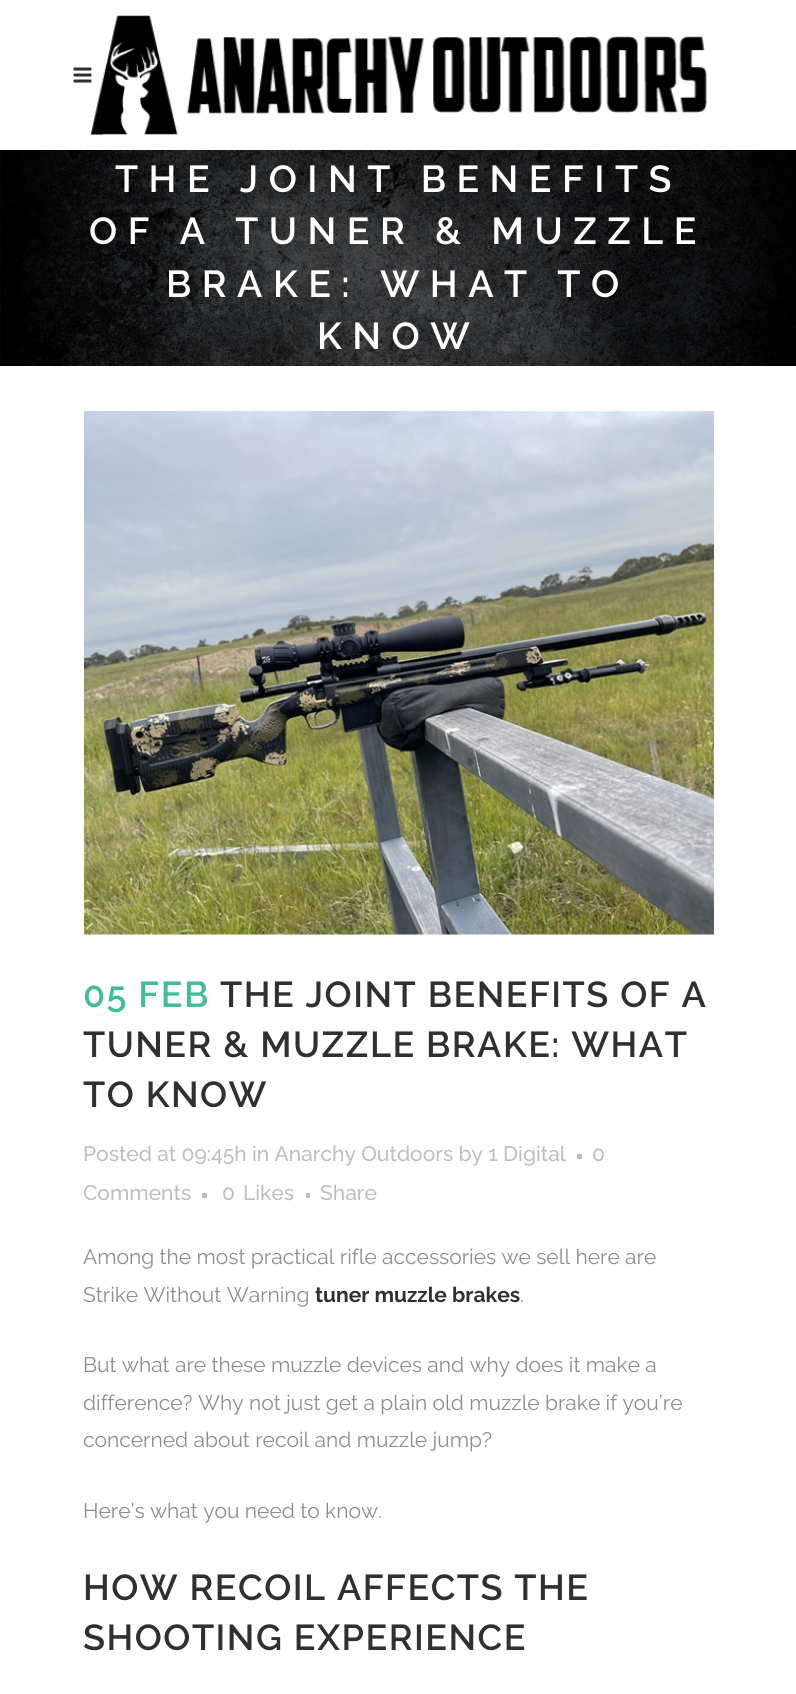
import math
import cairo

surface = cairo.ImageSurface(cairo.FORMAT_RGB24, 796, 1694)
ctx = cairo.Context(surface)
options = cairo.FontOptions()
options.set_hint_metrics(cairo.HINT_METRICS_OFF)
options.set_hint_style(cairo.HINT_STYLE_NONE)
ctx.set_font_options(options)
ctx.set_miter_limit(4)


def spaced_text(x, y, s, letter, word):
    ctx.move_to(x, y)
    for ch in s:
        ctx.show_text(ch)
        ctx.rel_move_to(letter + word * (ch == ' '), 0)


def picture(path, x, y, w, h):
    ctx.save()
    ctx.set_source_surface(cairo.ImageSurface.create_from_png(path), x, y)
    ctx.rectangle(x, y, w, h)
    ctx.fill()
    ctx.restore()


ctx.set_source_rgb(1, 1, 1)
ctx.paint()
picture("img2.png", 90, 15, 617, 120)
picture("img1.png", 73, 67, 19, 16)
picture("img3.png", 0, 150, 796, 216)
ctx.select_font_face("Raleway SemiBold")
ctx.set_font_size(37.5)
ctx.set_source_rgb(1, 1, 1)
spaced_text(115, 192, "THE JOINT BENEFITS", 10.5, 0)
spaced_text(89, 244, "OF A TUNER & MUZZLE", 10.5, 0)
spaced_text(166, 297, "BRAKE: WHAT TO", 10.5, 0)
spaced_text(317, 349, "KNOW", 10.5, 0)
picture("img4.png", 84, 411, 630, 524)
ctx.set_font_size(36)
ctx.set_source_rgb(0.259, 0.737, 0.608)
spaced_text(83, 1007, "05 FEB", 1.5, 0)
ctx.set_source_rgb(0.188, 0.188, 0.188)
spaced_text(220, 1007, "THE JOINT BENEFITS OF A", 1.5, 0)
spaced_text(83, 1057, "TUNER & MUZZLE BRAKE: WHAT", 1.5, 0)
spaced_text(83, 1107, "TO KNOW", 1.5, 0)
ctx.select_font_face("Raleway Medium")
ctx.set_font_size(21)
ctx.set_source_rgb(0.745, 0.745, 0.745)
ctx.move_to(83, 1161)
ctx.show_text("Posted at 09:45h in Anarchy Outdoors by 1 Digital")
ctx.rectangle(577, 1154, 5, 5)
ctx.fill()
ctx.move_to(592, 1161)
ctx.show_text("0")
ctx.move_to(83, 1200)
ctx.show_text("Comments")
ctx.rectangle(202, 1193, 5, 5)
ctx.fill()
ctx.move_to(222, 1200)
ctx.show_text("0")
ctx.move_to(243, 1200)
ctx.show_text("Likes")
ctx.rectangle(306, 1193, 4, 5)
ctx.fill()
ctx.move_to(320, 1200)
ctx.show_text("Share")
ctx.select_font_face("Raleway")
ctx.set_source_rgb(0.553, 0.553, 0.553)
ctx.move_to(83, 1264)
ctx.show_text("Among the most practical rifle accessories we sell here are")
ctx.move_to(83, 1302)
ctx.show_text("Strike Without Warning")
ctx.select_font_face("Raleway", cairo.FONT_SLANT_NORMAL, cairo.FONT_WEIGHT_BOLD)
ctx.set_source_rgb(0.188, 0.188, 0.188)
ctx.move_to(315, 1302)
ctx.show_text("tuner muzzle brakes")
ctx.select_font_face("Raleway")
ctx.set_source_rgb(0.553, 0.553, 0.553)
ctx.move_to(520, 1302)
ctx.show_text(".")
ctx.move_to(83, 1372)
ctx.show_text("But what are these muzzle devices and why does it make a")
ctx.move_to(83, 1410)
ctx.show_text("difference? Why not just get a plain old muzzle brake if you’re")
ctx.move_to(83, 1447)
ctx.show_text("concerned about recoil and muzzle jump?")
ctx.move_to(83, 1518)
ctx.show_text("Here’s what you need to know.")
ctx.select_font_face("Raleway SemiBold")
ctx.set_font_size(36)
ctx.set_source_rgb(0.188, 0.188, 0.188)
spaced_text(83, 1600, "HOW RECOIL AFFECTS THE", 1.5, 0)
spaced_text(83, 1650, "SHOOTING EXPERIENCE", 1.5, 0)
surface.write_to_png("page.png")
